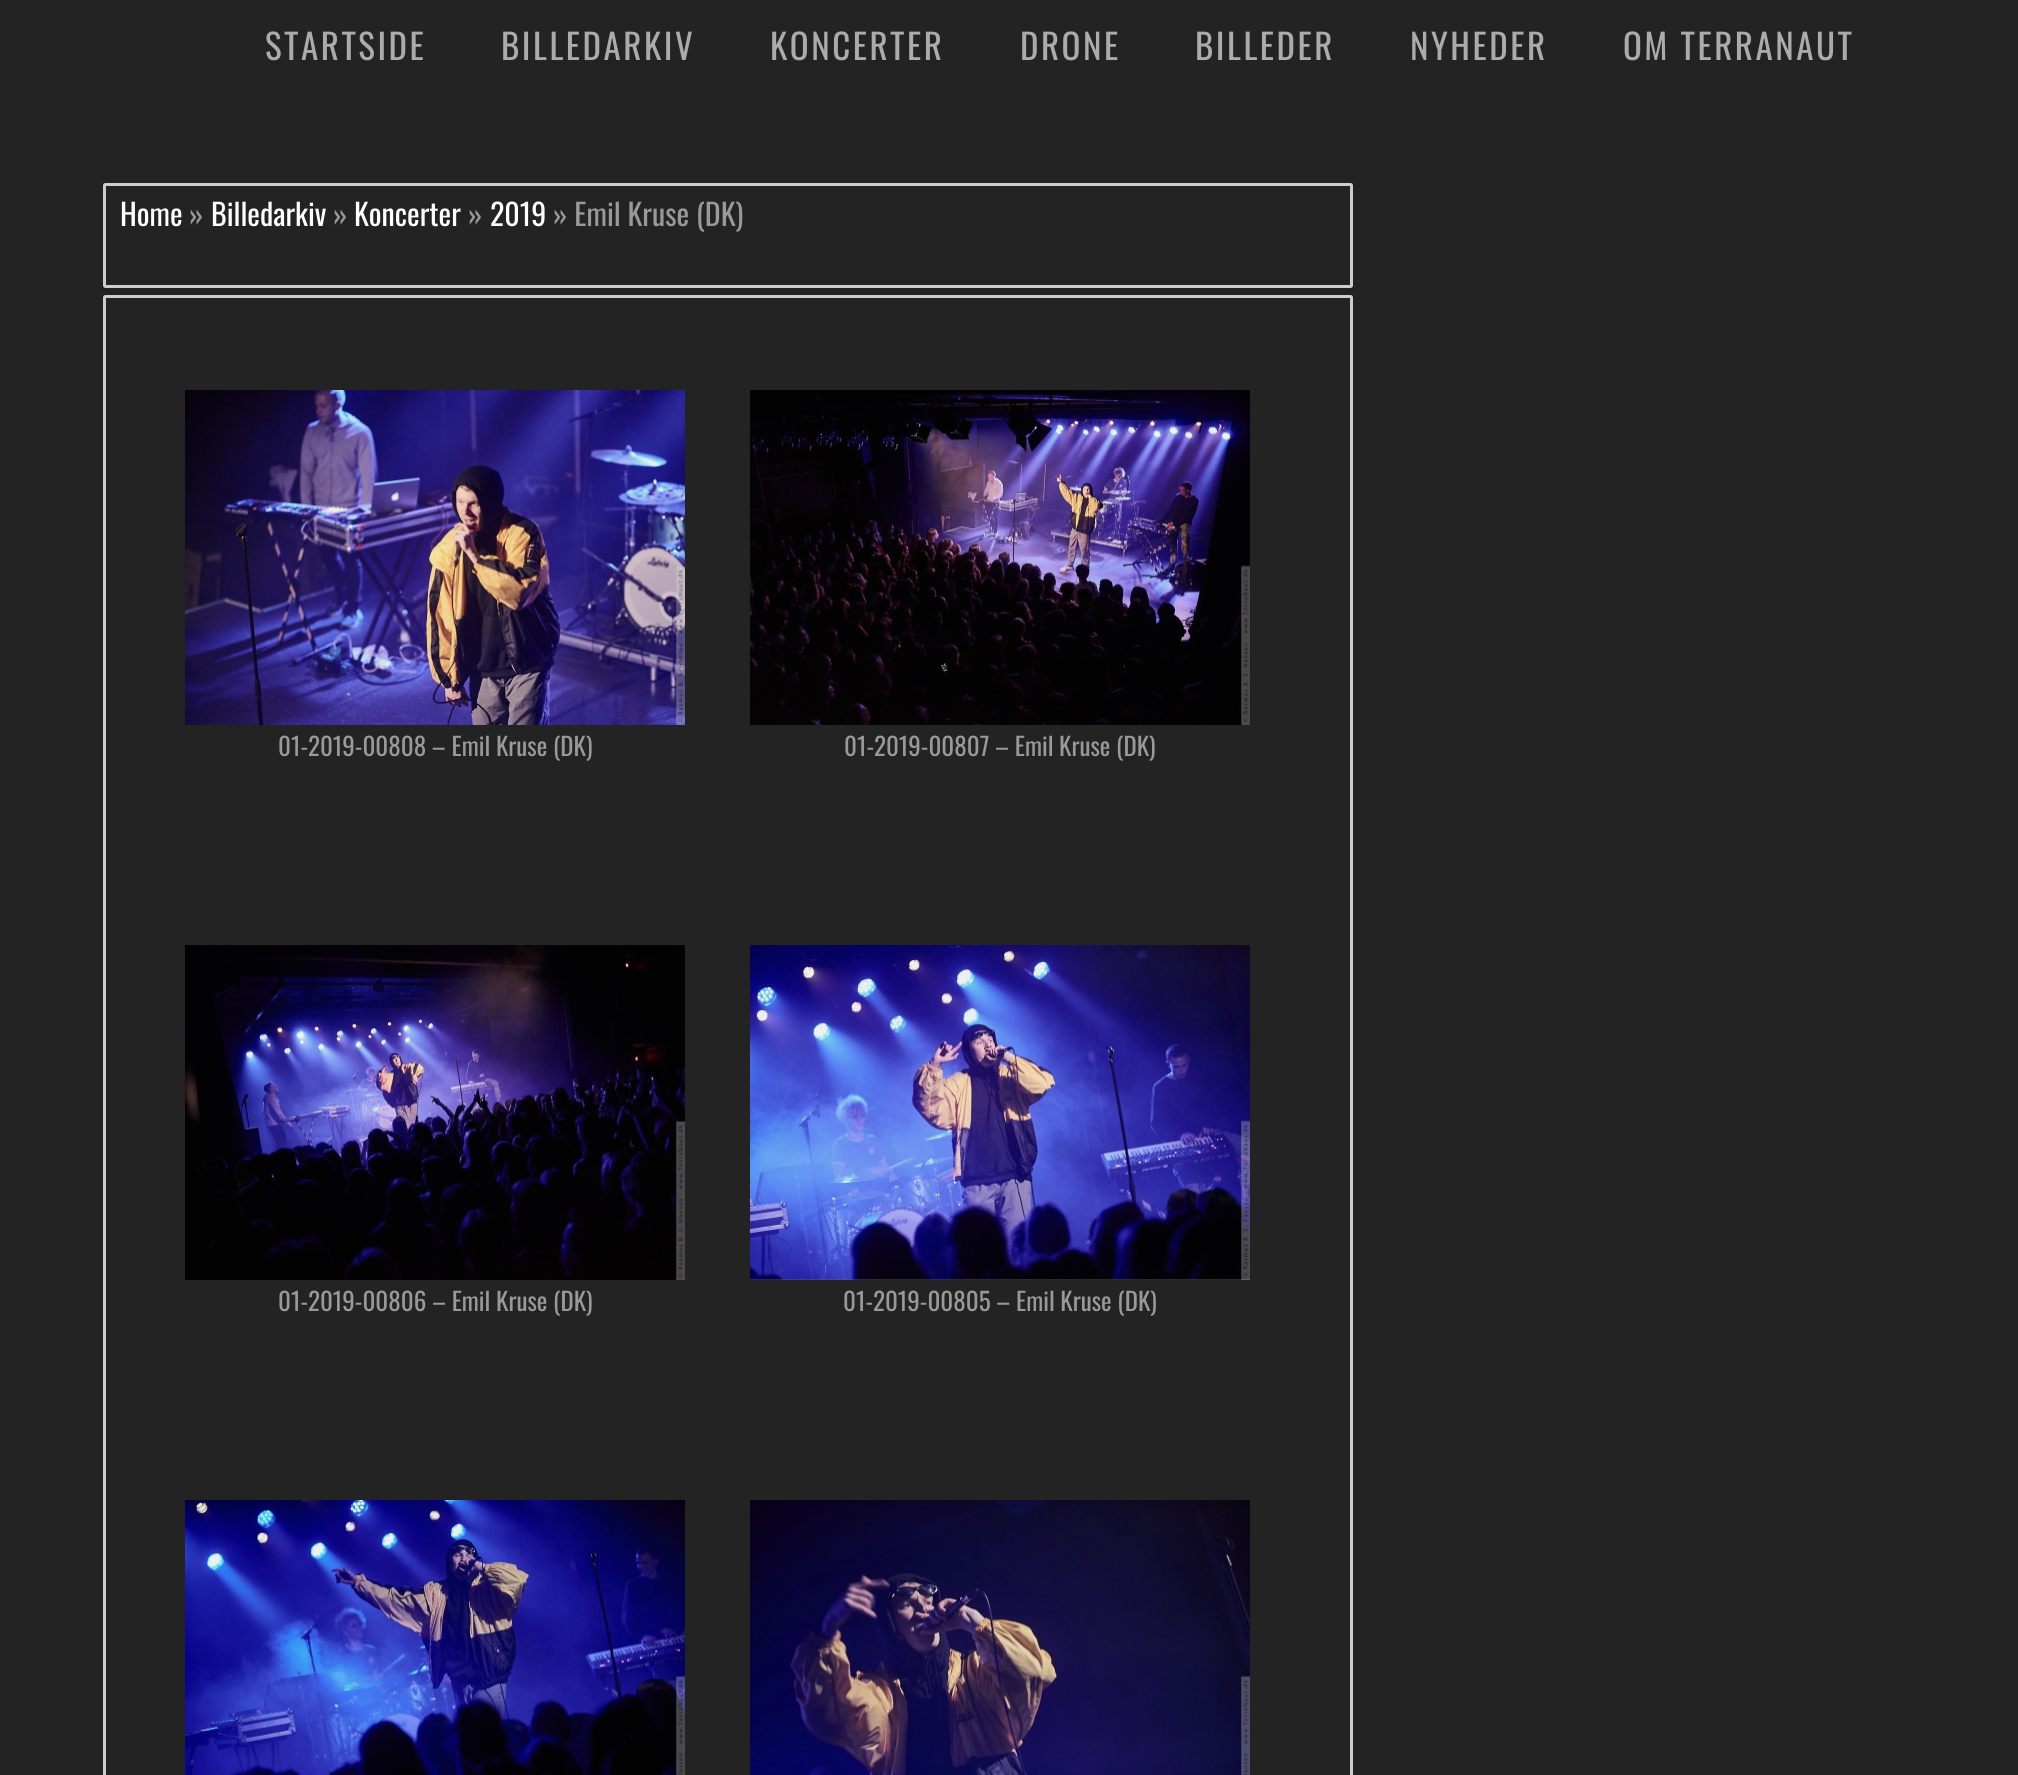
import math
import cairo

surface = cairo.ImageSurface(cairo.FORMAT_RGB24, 2018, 1775)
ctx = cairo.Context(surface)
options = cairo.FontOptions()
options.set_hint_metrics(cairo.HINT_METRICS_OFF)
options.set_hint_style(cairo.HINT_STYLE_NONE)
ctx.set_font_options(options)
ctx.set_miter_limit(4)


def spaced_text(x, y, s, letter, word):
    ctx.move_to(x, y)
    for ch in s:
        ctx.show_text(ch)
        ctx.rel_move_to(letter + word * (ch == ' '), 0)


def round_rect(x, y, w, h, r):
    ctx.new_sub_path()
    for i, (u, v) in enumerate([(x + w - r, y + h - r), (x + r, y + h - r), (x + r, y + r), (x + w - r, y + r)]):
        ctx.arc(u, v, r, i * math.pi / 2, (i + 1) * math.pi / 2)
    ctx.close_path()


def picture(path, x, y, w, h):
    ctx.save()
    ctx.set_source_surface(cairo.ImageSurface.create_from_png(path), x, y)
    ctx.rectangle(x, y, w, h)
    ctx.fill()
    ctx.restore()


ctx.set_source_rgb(0.137, 0.137, 0.137)
ctx.paint()
ctx.select_font_face("Oswald")
ctx.set_font_size(35)
ctx.set_source_rgb(0.671, 0.671, 0.671)
spaced_text(265, 60, "STARTSIDE", 2.5, 0)
spaced_text(501, 60, "BILLEDARKIV", 2.5, 0)
spaced_text(770, 60, "KONCERTER", 2.5, 0)
spaced_text(1020, 60, "DRONE", 2.5, 0)
spaced_text(1195, 60, "BILLEDER", 2.5, 0)
spaced_text(1410, 60, "NYHEDER", 2.5, 0)
spaced_text(1623, 60, "OM TERRANAUT", 2.5, 0)
round_rect(104.5, 184.5, 1247, 102, 1)
ctx.set_source_rgb(0.8, 0.8, 0.8)
ctx.set_line_width(3)
ctx.stroke()
ctx.set_font_size(30)
ctx.set_source_rgb(1, 1, 1)
ctx.move_to(120, 226)
ctx.show_text("Home")
ctx.set_source_rgb(0.6, 0.6, 0.6)
ctx.move_to(189, 226)
ctx.show_text("»")
ctx.set_source_rgb(1, 1, 1)
ctx.move_to(211, 226)
ctx.show_text("Billedarkiv")
ctx.set_source_rgb(0.6, 0.6, 0.6)
ctx.move_to(333, 226)
ctx.show_text("»")
ctx.set_source_rgb(1, 1, 1)
ctx.move_to(354, 226)
ctx.show_text("Koncerter")
ctx.set_source_rgb(0.6, 0.6, 0.6)
ctx.move_to(468, 226)
ctx.show_text("»")
ctx.set_source_rgb(1, 1, 1)
ctx.move_to(490, 226)
ctx.show_text("2019")
ctx.set_source_rgb(0.6, 0.6, 0.6)
ctx.move_to(553, 226)
ctx.show_text("» Emil Kruse (DK)")
round_rect(104.5, 296.5, 1247, 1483, 1)
ctx.set_source_rgb(0.8, 0.8, 0.8)
ctx.stroke()
picture("img1.png", 185, 390, 500, 335)
ctx.set_font_size(25)
ctx.set_source_rgb(0.6, 0.6, 0.6)
ctx.move_to(278, 756)
ctx.show_text("01-2019-00808 – Emil Kruse (DK)")
picture("img2.png", 750, 390, 500, 335)
ctx.move_to(844, 756)
ctx.show_text("01-2019-00807 – Emil Kruse (DK)")
picture("img3.png", 185, 945, 500, 335)
ctx.move_to(278, 1311)
ctx.show_text("01-2019-00806 – Emil Kruse (DK)")
picture("img4.png", 750, 945, 500, 335)
ctx.move_to(843, 1311)
ctx.show_text("01-2019-00805 – Emil Kruse (DK)")
picture("img5.png", 185, 1500, 500, 275)
picture("img6.png", 750, 1500, 500, 275)
surface.write_to_png("page.png")
